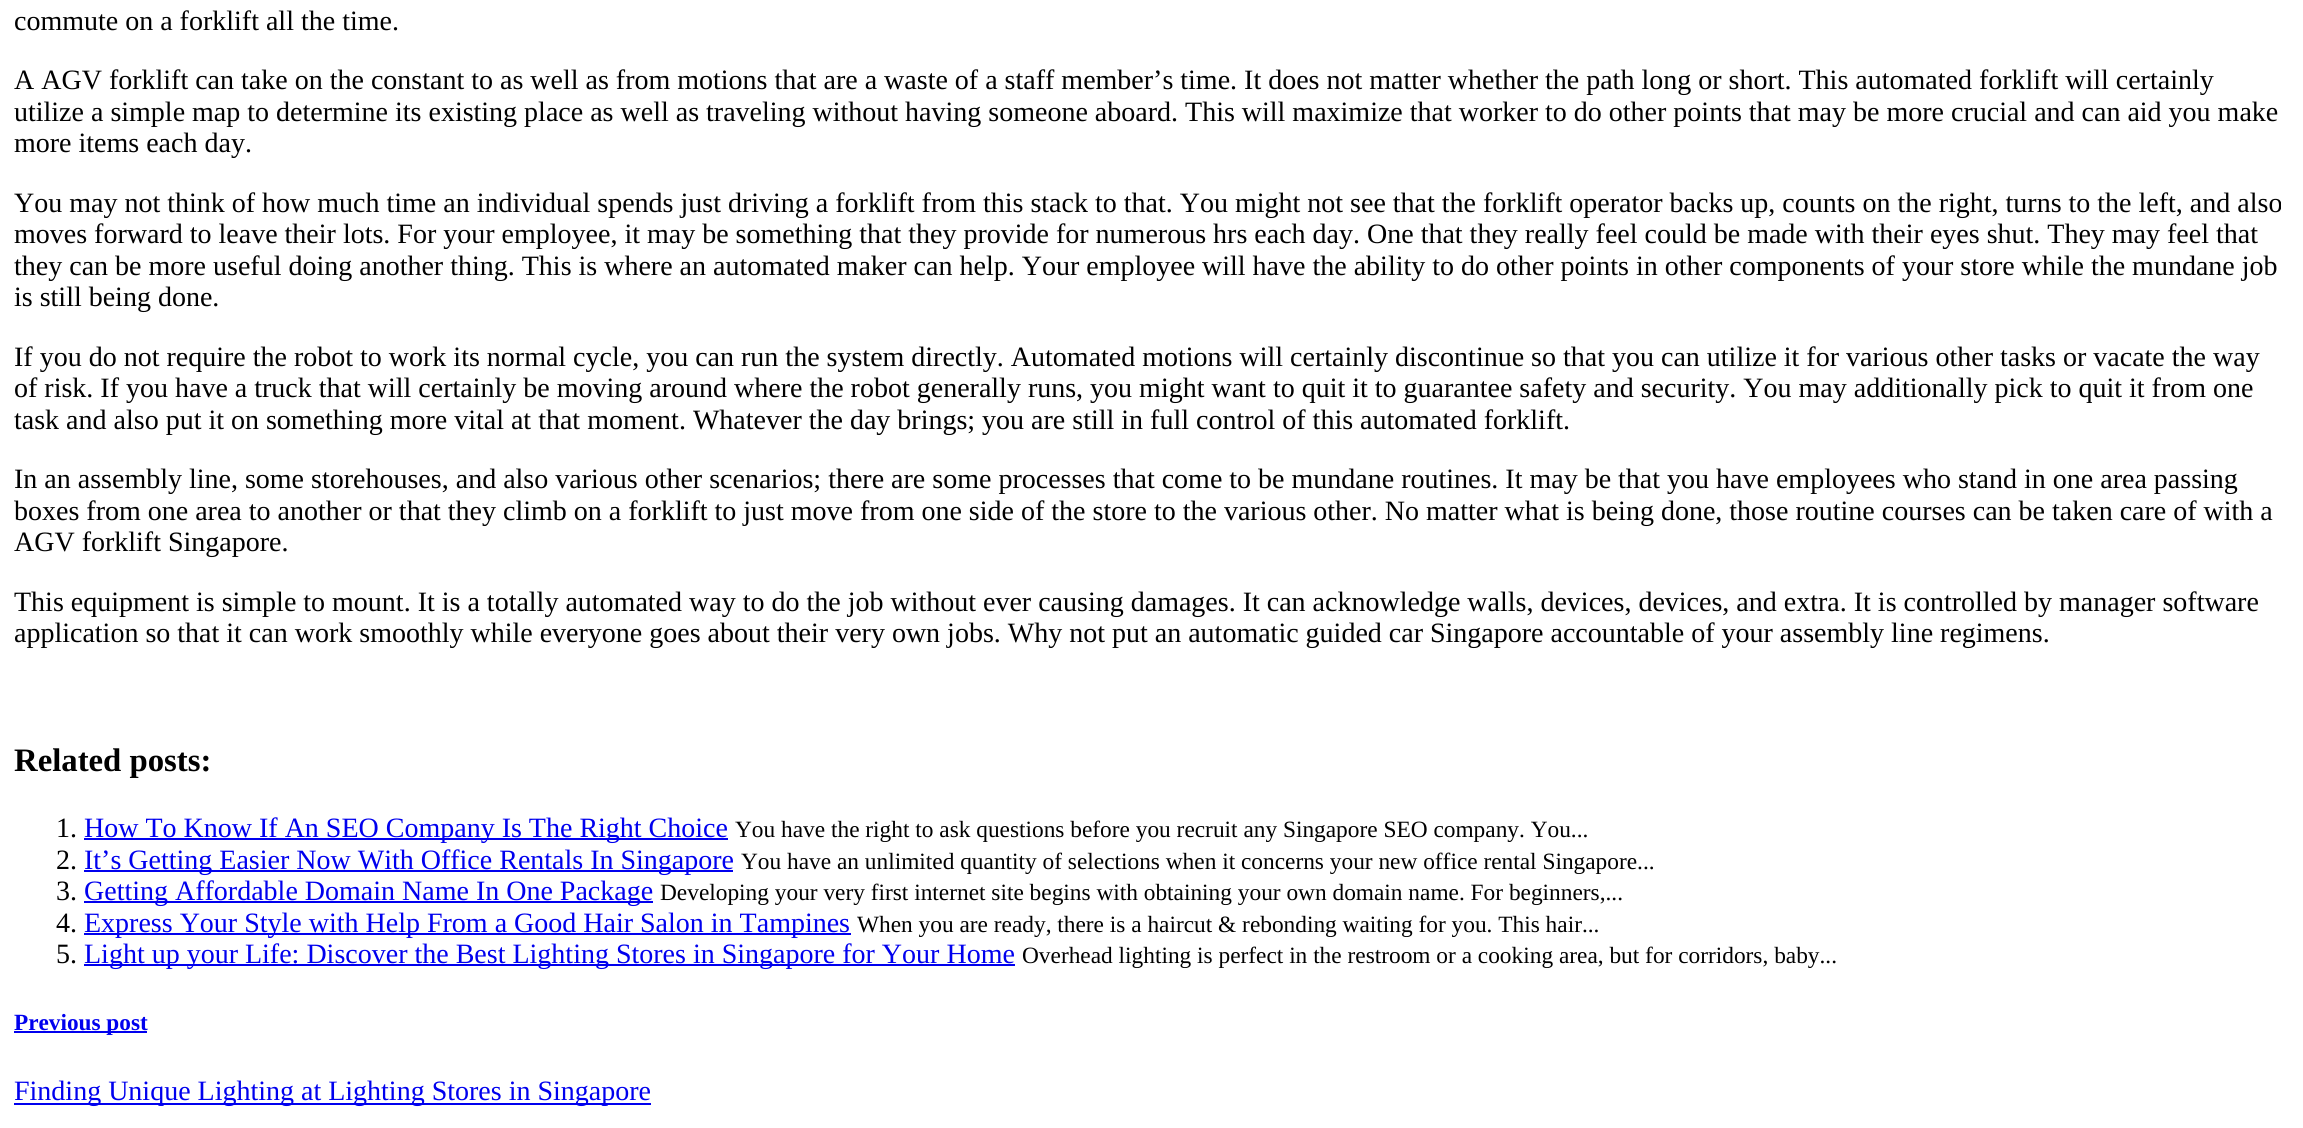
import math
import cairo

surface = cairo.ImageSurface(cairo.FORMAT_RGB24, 2303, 1128)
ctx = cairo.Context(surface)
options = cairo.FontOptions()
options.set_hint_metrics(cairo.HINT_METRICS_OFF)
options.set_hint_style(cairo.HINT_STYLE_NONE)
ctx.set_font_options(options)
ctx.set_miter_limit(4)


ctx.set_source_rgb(1, 1, 1)
ctx.paint()
ctx.select_font_face("Liberation Serif")
ctx.set_font_size(28)
ctx.set_source_rgb(0, 0, 0)
ctx.move_to(14, 30)
ctx.show_text("commute on a forklift all the time.")
ctx.move_to(14, 89)
ctx.show_text("A AGV forklift can take on the constant to as well as from motions that are a waste of a staff member’s time. It does not matter whether the path long or short. This automated forklift will certainly")
ctx.move_to(14, 121)
ctx.show_text("utilize a simple map to determine its existing place as well as traveling without having someone aboard. This will maximize that worker to do other points that may be more crucial and can aid you make")
ctx.move_to(14, 152)
ctx.show_text("more items each day.")
ctx.move_to(14, 212)
ctx.show_text("You may not think of how much time an individual spends just driving a forklift from this stack to that. You might not see that the forklift operator backs up, counts on the right, turns to the left, and also")
ctx.move_to(14, 243)
ctx.show_text("moves forward to leave their lots. For your employee, it may be something that they provide for numerous hrs each day. One that they really feel could be made with their eyes shut. They may feel that")
ctx.move_to(14, 275)
ctx.show_text("they can be more useful doing another thing. This is where an automated maker can help. Your employee will have the ability to do other points in other components of your store while the mundane job")
ctx.move_to(14, 306)
ctx.show_text("is still being done.")
ctx.move_to(14, 366)
ctx.show_text("If you do not require the robot to work its normal cycle, you can run the system directly. Automated motions will certainly discontinue so that you can utilize it for various other tasks or vacate the way")
ctx.move_to(14, 397)
ctx.show_text("of risk. If you have a truck that will certainly be moving around where the robot generally runs, you might want to quit it to guarantee safety and security. You may additionally pick to quit it from one")
ctx.move_to(14, 429)
ctx.show_text("task and also put it on something more vital at that moment. Whatever the day brings; you are still in full control of this automated forklift.")
ctx.move_to(14, 488)
ctx.show_text("In an assembly line, some storehouses, and also various other scenarios; there are some processes that come to be mundane routines. It may be that you have employees who stand in one area passing")
ctx.move_to(14, 520)
ctx.show_text("boxes from one area to another or that they climb on a forklift to just move from one side of the store to the various other. No matter what is being done, those routine courses can be taken care of with a")
ctx.move_to(14, 551)
ctx.show_text("AGV forklift Singapore.")
ctx.move_to(14, 611)
ctx.show_text("This equipment is simple to mount. It is a totally automated way to do the job without ever causing damages. It can acknowledge walls, devices, devices, and extra. It is controlled by manager software")
ctx.move_to(14, 642)
ctx.show_text("application so that it can work smoothly while everyone goes about their very own jobs. Why not put an automatic guided car Singapore accountable of your assembly line regimens.")
ctx.select_font_face("Liberation Serif", cairo.FONT_SLANT_NORMAL, cairo.FONT_WEIGHT_BOLD)
ctx.set_font_size(32.75)
ctx.move_to(14, 771)
ctx.show_text("Related posts:")
ctx.select_font_face("Liberation Serif")
ctx.set_font_size(28)
ctx.move_to(56, 837)
ctx.show_text("1.")
ctx.set_source_rgb(0, 0, 0.933)
ctx.rectangle(84, 838, 644, 2)
ctx.fill()
ctx.move_to(84, 837)
ctx.show_text("How To Know If An SEO Company Is The Right Choice")
ctx.set_font_size(23.35)
ctx.set_source_rgb(0, 0, 0)
ctx.move_to(735, 837)
ctx.show_text("You have the right to ask questions before you recruit any Singapore SEO company. You...")
ctx.set_font_size(28)
ctx.move_to(56, 869)
ctx.show_text("2.")
ctx.set_source_rgb(0, 0, 0.933)
ctx.rectangle(84, 870, 649, 2)
ctx.fill()
ctx.move_to(84, 869)
ctx.show_text("It’s Getting Easier Now With Office Rentals In Singapore")
ctx.set_font_size(23.35)
ctx.set_source_rgb(0, 0, 0)
ctx.move_to(741, 869)
ctx.show_text("You have an unlimited quantity of selections when it concerns your new office rental Singapore...")
ctx.set_font_size(28)
ctx.move_to(56, 900)
ctx.show_text("3.")
ctx.set_source_rgb(0, 0, 0.933)
ctx.rectangle(84, 901, 569, 2)
ctx.fill()
ctx.move_to(84, 900)
ctx.show_text("Getting Affordable Domain Name In One Package")
ctx.set_font_size(23.35)
ctx.set_source_rgb(0, 0, 0)
ctx.move_to(660, 900)
ctx.show_text("Developing your very first internet site begins with obtaining your own domain name. For beginners,...")
ctx.set_font_size(28)
ctx.move_to(56, 932)
ctx.show_text("4.")
ctx.set_source_rgb(0, 0, 0.933)
ctx.rectangle(84, 933, 767, 2)
ctx.fill()
ctx.move_to(84, 932)
ctx.show_text("Express Your Style with Help From a Good Hair Salon in Tampines")
ctx.set_font_size(23.35)
ctx.set_source_rgb(0, 0, 0)
ctx.move_to(857, 932)
ctx.show_text("When you are ready, there is a haircut & rebonding waiting for you. This hair...")
ctx.set_font_size(28)
ctx.move_to(56, 963)
ctx.show_text("5.")
ctx.set_source_rgb(0, 0, 0.933)
ctx.rectangle(84, 964, 931, 2)
ctx.fill()
ctx.move_to(84, 963)
ctx.show_text("Light up your Life: Discover the Best Lighting Stores in Singapore for Your Home")
ctx.set_font_size(23.35)
ctx.set_source_rgb(0, 0, 0)
ctx.move_to(1022, 963)
ctx.show_text("Overhead lighting is perfect in the restroom or a cooking area, but for corridors, baby...")
ctx.set_source_rgb(0, 0, 0.933)
ctx.rectangle(14, 1031, 133, 2)
ctx.fill()
ctx.select_font_face("Liberation Serif", cairo.FONT_SLANT_NORMAL, cairo.FONT_WEIGHT_BOLD)
ctx.set_font_size(23.25)
ctx.move_to(14, 1030)
ctx.show_text("Previous post")
ctx.rectangle(14, 1103, 637, 2)
ctx.fill()
ctx.select_font_face("Liberation Serif")
ctx.set_font_size(28)
ctx.move_to(14, 1100)
ctx.show_text("Finding Unique Lighting at Lighting Stores in Singapore")
surface.write_to_png("page.png")
